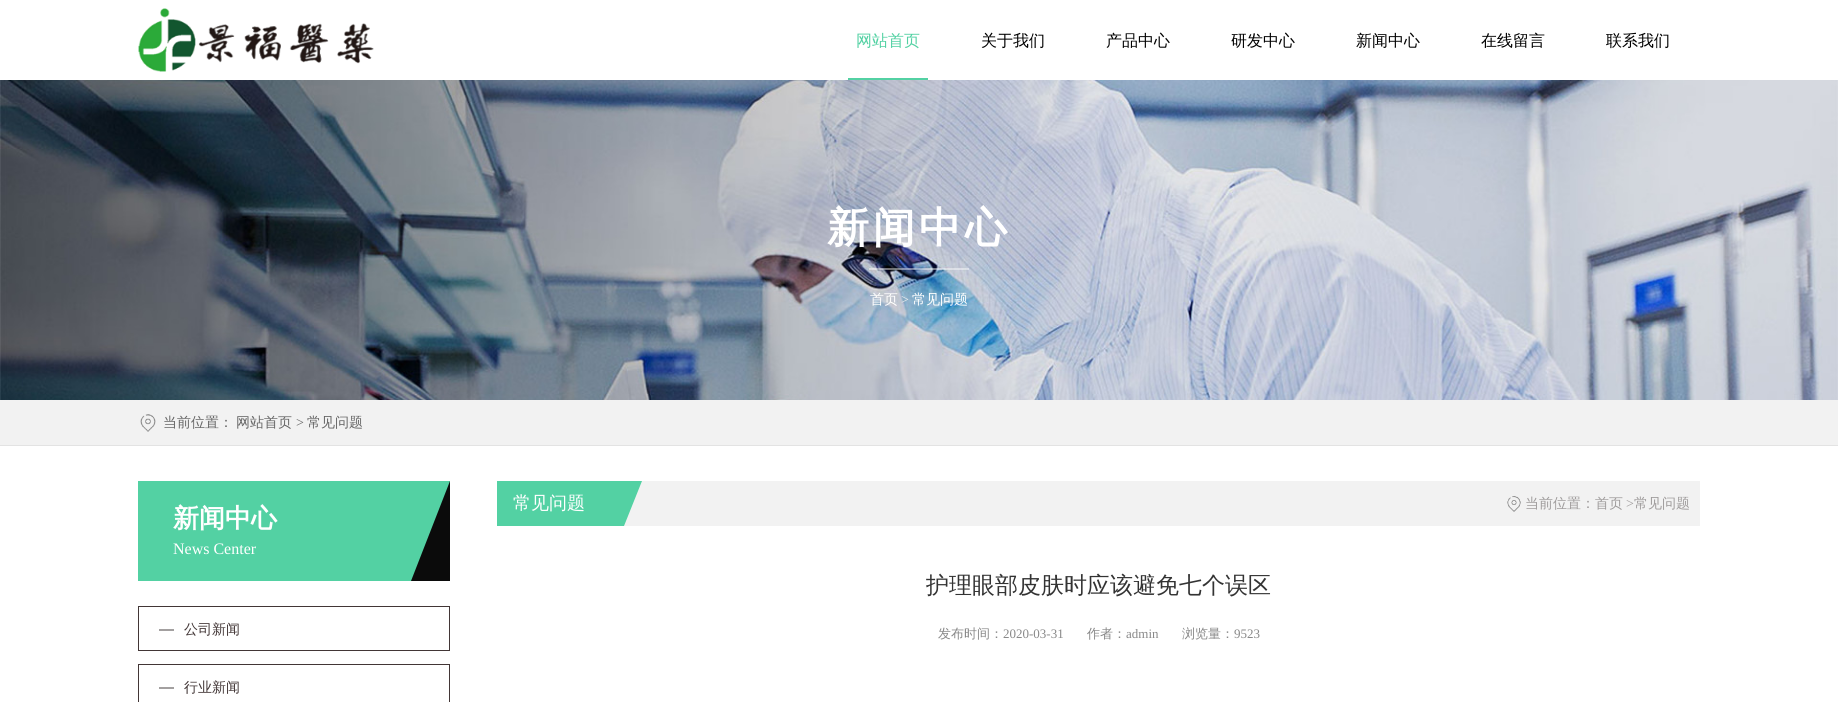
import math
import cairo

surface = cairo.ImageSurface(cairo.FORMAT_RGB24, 1838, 702)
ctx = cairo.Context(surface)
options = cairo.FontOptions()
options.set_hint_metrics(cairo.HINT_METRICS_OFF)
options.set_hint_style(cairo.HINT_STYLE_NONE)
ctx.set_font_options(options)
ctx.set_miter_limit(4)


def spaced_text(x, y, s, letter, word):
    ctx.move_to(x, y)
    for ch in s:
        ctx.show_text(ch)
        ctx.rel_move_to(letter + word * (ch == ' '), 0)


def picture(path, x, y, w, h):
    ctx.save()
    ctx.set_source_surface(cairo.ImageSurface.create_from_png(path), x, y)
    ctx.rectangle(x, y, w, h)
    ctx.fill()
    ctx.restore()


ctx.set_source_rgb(1, 1, 1)
ctx.paint()
picture("img1.png", 138, 8, 236, 64)
ctx.select_font_face("WenQuanYi Zen Hei Medium")
ctx.set_font_size(16)
ctx.set_source_rgb(0.325, 0.82, 0.639)
ctx.move_to(856, 46)
ctx.show_text("网站首页")
ctx.rectangle(848, 78, 80, 2)
ctx.fill()
ctx.set_source_rgb(0, 0, 0)
ctx.move_to(981, 46)
ctx.show_text("关于我们")
ctx.move_to(1106, 46)
ctx.show_text("产品中心")
ctx.move_to(1231, 46)
ctx.show_text("研发中心")
ctx.move_to(1356, 46)
ctx.show_text("新闻中心")
ctx.move_to(1481, 46)
ctx.show_text("在线留言")
ctx.move_to(1606, 46)
ctx.show_text("联系我们")
picture("img2.png", 0, 80, 1838, 320)
ctx.select_font_face("WenQuanYi Zen Hei", cairo.FONT_SLANT_NORMAL, cairo.FONT_WEIGHT_BOLD)
ctx.set_font_size(42)
ctx.set_source_rgb(1, 1, 1)
spaced_text(827, 242, "新闻中心", 4, 0)
ctx.set_source_rgba(1, 1, 1, 0.44)
ctx.rectangle(869, 268, 100, 2)
ctx.fill()
ctx.select_font_face("WenQuanYi Zen Hei Medium")
ctx.set_font_size(14)
ctx.set_source_rgb(1, 1, 1)
ctx.move_to(870, 304)
ctx.show_text("首页")
ctx.select_font_face("Liberation Serif")
ctx.set_source_rgb(0.933, 0.933, 0.933)
ctx.move_to(901, 304)
ctx.show_text(">")
ctx.select_font_face("WenQuanYi Zen Hei Medium")
ctx.set_source_rgb(1, 1, 1)
ctx.move_to(912, 304)
ctx.show_text("常见问题")
ctx.set_source_rgb(0.949, 0.949, 0.949)
ctx.rectangle(0, 400, 1838, 45)
ctx.fill()
ctx.set_source_rgb(0.89, 0.89, 0.89)
ctx.rectangle(0, 445, 1838, 1)
ctx.fill()
picture("img3.png", 140, 414, 16, 18)
ctx.set_source_rgb(0.4, 0.4, 0.4)
ctx.move_to(163, 427)
ctx.show_text("当前位置：")
ctx.move_to(236, 427)
ctx.show_text("网站首页")
ctx.select_font_face("Liberation Serif")
ctx.move_to(296, 427)
ctx.show_text(">")
ctx.select_font_face("WenQuanYi Zen Hei Medium")
ctx.move_to(307, 427)
ctx.show_text("常见问题")
ctx.set_source_rgb(0.325, 0.82, 0.639)
ctx.rectangle(138, 481, 312, 100)
ctx.fill()
ctx.select_font_face("WenQuanYi Zen Hei", cairo.FONT_SLANT_NORMAL, cairo.FONT_WEIGHT_BOLD)
ctx.set_font_size(26)
ctx.set_source_rgb(1, 1, 1)
ctx.move_to(173, 527)
ctx.show_text("新闻中心")
ctx.set_source_rgb(0.043, 0.043, 0.043)
ctx.new_path()
ctx.move_to(450, 581)
ctx.line_to(411, 581)
ctx.line_to(450, 481)
ctx.close_path()
ctx.fill()
ctx.select_font_face("Liberation Serif")
ctx.set_font_size(16)
ctx.set_source_rgb(1, 1, 1)
ctx.move_to(173, 554)
ctx.show_text("News Center")
ctx.rectangle(138.5, 606.5, 311, 44)
ctx.set_source_rgb(0.259, 0.212, 0.212)
ctx.set_line_width(1)
ctx.stroke()
ctx.set_source_rgb(0.639, 0.627, 0.627)
ctx.rectangle(159, 629, 15, 2)
ctx.fill()
ctx.select_font_face("WenQuanYi Zen Hei Medium")
ctx.set_font_size(14)
ctx.set_source_rgb(0.259, 0.212, 0.212)
ctx.move_to(184, 634)
ctx.show_text("公司新闻")
ctx.rectangle(138.5, 664.5, 311, 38)
ctx.stroke()
ctx.set_source_rgb(0.639, 0.627, 0.627)
ctx.rectangle(159, 687, 15, 2)
ctx.fill()
ctx.set_source_rgb(0.259, 0.212, 0.212)
ctx.move_to(184, 692)
ctx.show_text("行业新闻")
ctx.set_source_rgb(0.949, 0.949, 0.949)
ctx.rectangle(642, 481, 1058, 45)
ctx.fill()
ctx.set_source_rgb(0.325, 0.82, 0.639)
ctx.rectangle(497, 481, 145, 45)
ctx.fill()
ctx.set_font_size(18)
ctx.set_source_rgb(1, 1, 1)
ctx.move_to(513, 509)
ctx.show_text("常见问题")
ctx.set_source_rgb(0.949, 0.949, 0.949)
ctx.new_path()
ctx.move_to(642, 526)
ctx.line_to(624, 526)
ctx.line_to(642, 481)
ctx.close_path()
ctx.fill()
picture("img4.png", 1507, 496, 14, 16)
ctx.set_font_size(14)
ctx.set_source_rgb(0.624, 0.612, 0.612)
ctx.move_to(1525, 508)
ctx.show_text("当前位置：首页")
ctx.select_font_face("Liberation Serif")
ctx.move_to(1626, 508)
ctx.show_text(">")
ctx.select_font_face("WenQuanYi Zen Hei Medium")
ctx.move_to(1634, 508)
ctx.show_text("常见问题")
ctx.set_font_size(23)
ctx.set_source_rgb(0.2, 0.2, 0.2)
ctx.move_to(926, 593)
ctx.show_text("护理眼部皮肤时应该避免七个误区")
ctx.set_font_size(13)
ctx.set_source_rgb(0.533, 0.533, 0.533)
ctx.move_to(938, 638)
ctx.show_text("发布时间：")
ctx.select_font_face("Liberation Serif")
ctx.move_to(1003, 638)
ctx.show_text("2020-03-31")
ctx.select_font_face("WenQuanYi Zen Hei Medium")
ctx.move_to(1087, 638)
ctx.show_text("作者：")
ctx.select_font_face("Liberation Serif")
ctx.move_to(1126, 638)
ctx.show_text("admin")
ctx.select_font_face("WenQuanYi Zen Hei Medium")
ctx.move_to(1182, 638)
ctx.show_text("浏览量：")
ctx.select_font_face("Liberation Serif")
ctx.move_to(1234, 638)
ctx.show_text("9523")
surface.write_to_png("page.png")
